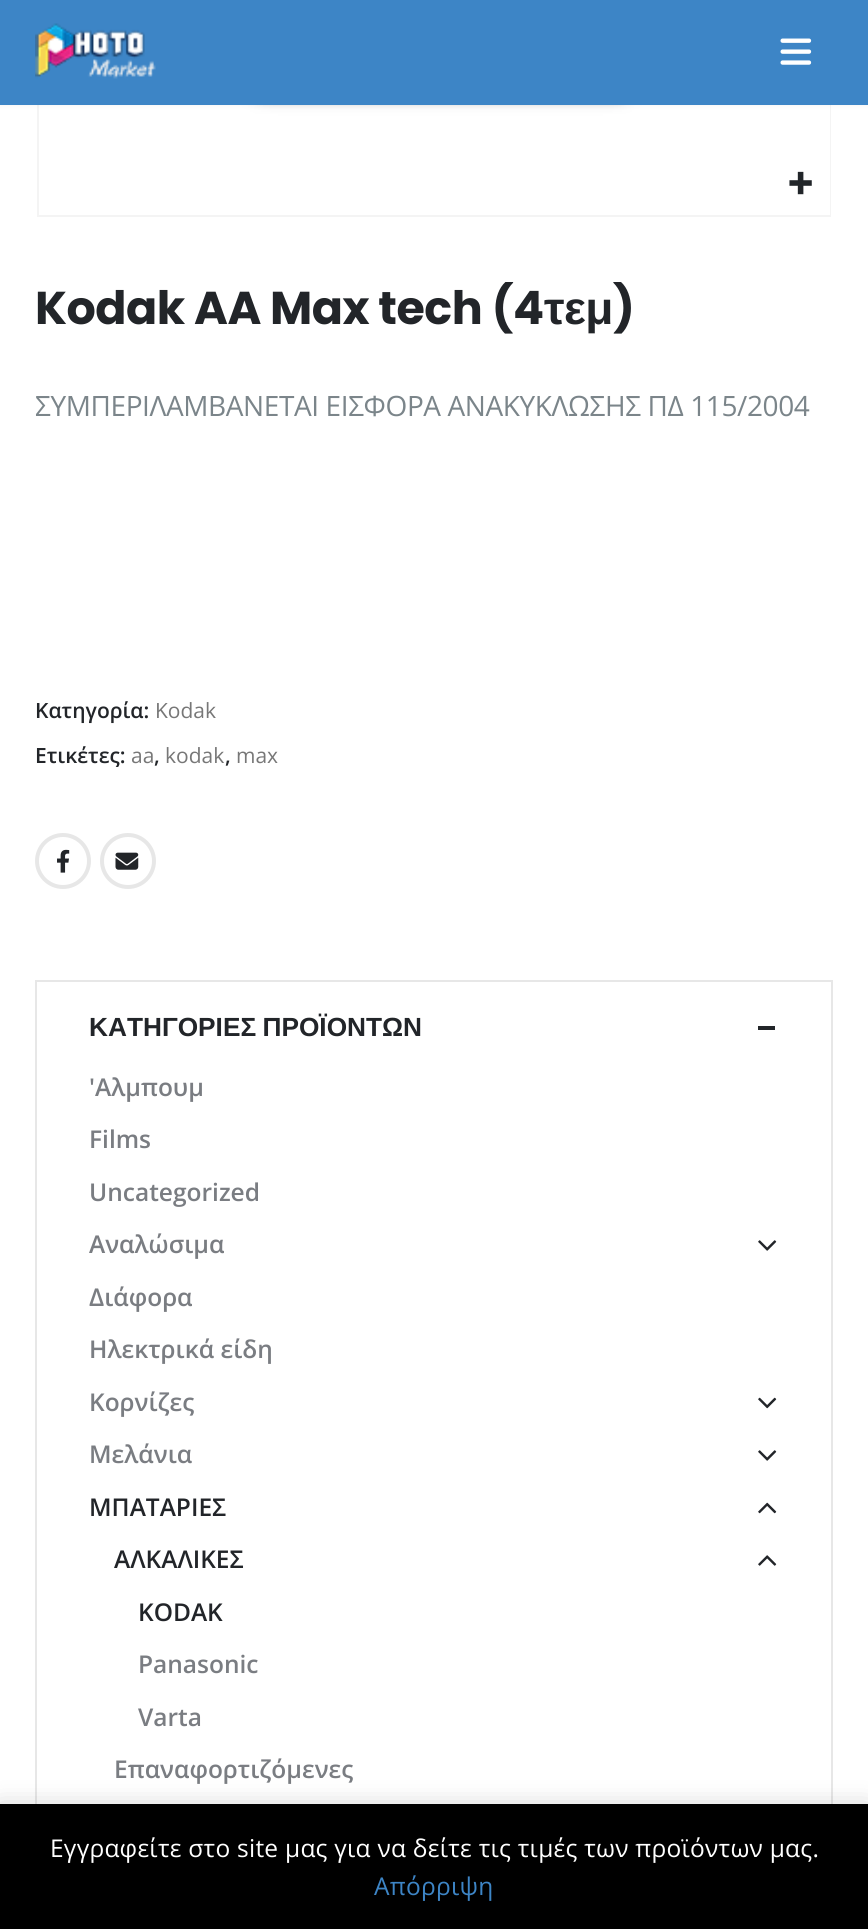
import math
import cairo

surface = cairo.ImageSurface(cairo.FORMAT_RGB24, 868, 1929)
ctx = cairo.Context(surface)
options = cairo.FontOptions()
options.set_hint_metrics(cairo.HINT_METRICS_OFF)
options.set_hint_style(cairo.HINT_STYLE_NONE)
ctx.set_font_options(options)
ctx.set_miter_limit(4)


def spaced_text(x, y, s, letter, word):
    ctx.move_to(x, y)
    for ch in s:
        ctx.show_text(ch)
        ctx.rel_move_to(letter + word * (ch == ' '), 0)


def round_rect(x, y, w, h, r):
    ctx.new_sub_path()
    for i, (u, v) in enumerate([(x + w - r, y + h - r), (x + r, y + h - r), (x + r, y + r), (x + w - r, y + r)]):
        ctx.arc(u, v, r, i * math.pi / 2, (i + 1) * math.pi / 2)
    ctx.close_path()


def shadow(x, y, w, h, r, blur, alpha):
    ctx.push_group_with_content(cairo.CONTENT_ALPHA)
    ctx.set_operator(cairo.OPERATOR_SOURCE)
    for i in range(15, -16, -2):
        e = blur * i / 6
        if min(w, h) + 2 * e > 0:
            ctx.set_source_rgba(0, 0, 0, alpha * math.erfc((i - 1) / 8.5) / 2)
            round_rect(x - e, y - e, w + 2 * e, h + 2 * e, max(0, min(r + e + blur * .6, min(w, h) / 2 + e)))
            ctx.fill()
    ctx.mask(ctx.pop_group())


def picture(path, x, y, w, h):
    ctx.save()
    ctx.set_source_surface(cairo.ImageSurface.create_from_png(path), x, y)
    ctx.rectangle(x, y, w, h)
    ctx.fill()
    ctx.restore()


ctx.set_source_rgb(1, 1, 1)
ctx.paint()
ctx.rectangle(38, -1, 792, 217)
ctx.set_source_rgb(0.957, 0.957, 0.957)
ctx.stroke()
picture("img3.png", 233, 105, 597, 110)
ctx.set_source_rgb(0, 0, 0)
shadow(0, 0, 868, 105, 0, 2.5, 0.06)
ctx.set_source_rgb(0.239, 0.522, 0.776)
ctx.rectangle(0, 0, 868, 105)
ctx.fill()
picture("img1.png", 35, 23, 121, 56)
picture("img2.png", 780, 38, 32, 27)
picture("img4.png", 789, 171, 23, 24)
ctx.select_font_face("Poppins", cairo.FONT_SLANT_NORMAL, cairo.FONT_WEIGHT_BOLD)
ctx.set_font_size(46)
ctx.set_source_rgb(0.133, 0.145, 0.161)
spaced_text(35, 324, "Kodak AA Max tech (4", -0.5, 0)
ctx.select_font_face("Liberation Sans", cairo.FONT_SLANT_NORMAL, cairo.FONT_WEIGHT_BOLD)
spaced_text(544, 324, "τεμ", -0.5, 0)
ctx.select_font_face("Poppins", cairo.FONT_SLANT_NORMAL, cairo.FONT_WEIGHT_BOLD)
spaced_text(613, 324, ")", -0.5, 0)
ctx.select_font_face("Open Sans")
ctx.set_font_size(28)
ctx.set_source_rgb(0.482, 0.522, 0.541)
spaced_text(35, 416, "ΣΥΜΠΕΡΙΛΑΜΒΑΝΕΤΑΙ EIΣΦΟΡΑ ΑΝΑΚΥΚΛΩΣΗΣ ΠΔ 115/2004", -0.4, 0)
ctx.select_font_face("Open Sans SemiBold")
ctx.set_font_size(21)
ctx.set_source_rgb(0.133, 0.145, 0.161)
ctx.move_to(35, 718)
ctx.show_text("Κατηγορία:")
ctx.select_font_face("Open Sans")
ctx.set_source_rgb(0.467, 0.467, 0.467)
ctx.move_to(155, 718)
ctx.show_text("Kodak")
ctx.select_font_face("Open Sans SemiBold")
ctx.set_source_rgb(0.133, 0.145, 0.161)
ctx.move_to(35, 763)
ctx.show_text("Ετικέτες:")
ctx.select_font_face("Open Sans")
ctx.set_source_rgb(0.467, 0.467, 0.467)
ctx.move_to(131, 763)
ctx.show_text("aa")
ctx.select_font_face("Open Sans SemiBold")
ctx.set_source_rgb(0.133, 0.145, 0.161)
ctx.move_to(154, 763)
ctx.show_text(",")
ctx.select_font_face("Open Sans")
ctx.set_source_rgb(0.467, 0.467, 0.467)
ctx.move_to(165, 763)
ctx.show_text("kodak")
ctx.select_font_face("Open Sans SemiBold")
ctx.set_source_rgb(0.133, 0.145, 0.161)
ctx.move_to(225, 763)
ctx.show_text(",")
ctx.select_font_face("Open Sans")
ctx.set_source_rgb(0.467, 0.467, 0.467)
ctx.move_to(236, 763)
ctx.show_text("max")
ctx.new_path()
ctx.arc(63, 861, 26, 0, 2 * math.pi)
ctx.set_source_rgb(0.906, 0.906, 0.906)
ctx.set_line_width(4)
ctx.stroke()
picture("img5.png", 57, 849, 13, 24)
ctx.arc(128, 861, 26, 0, 2 * math.pi)
ctx.stroke()
picture("img6.png", 115, 852, 24, 18)
ctx.rectangle(36, 981, 796, 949)
ctx.set_line_width(2)
ctx.stroke()
ctx.select_font_face("Liberation Sans", cairo.FONT_SLANT_NORMAL, cairo.FONT_WEIGHT_BOLD)
ctx.set_font_size(26.25)
ctx.set_source_rgb(0.133, 0.145, 0.161)
spaced_text(89, 1036, "ΚΑΤΗΓΟΡΙΕΣ ΠΡΟΪΟΝΤΩΝ", 0, -1)
ctx.rectangle(758, 1026, 17, 4)
ctx.fill()
ctx.select_font_face("Open Sans SemiBold")
ctx.set_font_size(24.5)
ctx.set_source_rgb(0.478, 0.49, 0.51)
ctx.move_to(89, 1096)
ctx.show_text("'Αλμπουμ")
ctx.move_to(89, 1148)
ctx.show_text("Films")
ctx.move_to(89, 1201)
ctx.show_text("Uncategorized")
ctx.move_to(89, 1253)
ctx.show_text("Αναλώσιμα")
picture("img7.png", 758, 1240, 19, 11)
ctx.move_to(89, 1306)
ctx.show_text("Διάφορα")
ctx.move_to(89, 1358)
ctx.show_text("Ηλεκτρικά είδη")
ctx.move_to(89, 1411)
ctx.show_text("Κορνίζες")
picture("img8.png", 758, 1397, 19, 12)
ctx.move_to(89, 1463)
ctx.show_text("Μελάνια")
picture("img7.png", 758, 1450, 19, 11)
ctx.set_source_rgb(0.133, 0.145, 0.161)
ctx.move_to(89, 1516)
ctx.show_text("ΜΠΑΤΑΡΙΕΣ")
picture("img9.png", 758, 1502, 19, 12)
ctx.move_to(114, 1568)
ctx.show_text("ΑΛΚΑΛΙΚΕΣ")
picture("img10.png", 758, 1555, 19, 11)
ctx.move_to(138, 1621)
ctx.show_text("KODAK")
ctx.set_source_rgb(0.478, 0.49, 0.51)
ctx.move_to(138, 1673)
ctx.show_text("Panasonic")
ctx.move_to(138, 1726)
ctx.show_text("Varta")
ctx.move_to(114, 1778)
ctx.show_text("Επαναφορτιζόμενες")
ctx.set_source_rgb(0, 0, 0)
shadow(0, 1806, 868, 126, 0, 12, 0.2)
ctx.set_source_rgb(0, 0, 0)
ctx.rectangle(0, 1804, 868, 125)
ctx.fill()
ctx.select_font_face("Open Sans")
ctx.set_source_rgb(1, 1, 1)
spaced_text(50, 1857, "Εγγραφείτε στο site μας για να δείτε τις τιμές των προϊόντων μας.", 0.25, 0)
ctx.set_source_rgb(0.239, 0.522, 0.776)
spaced_text(374, 1895, "Απόρριψη", 0.25, 0)
surface.write_to_png("page.png")
